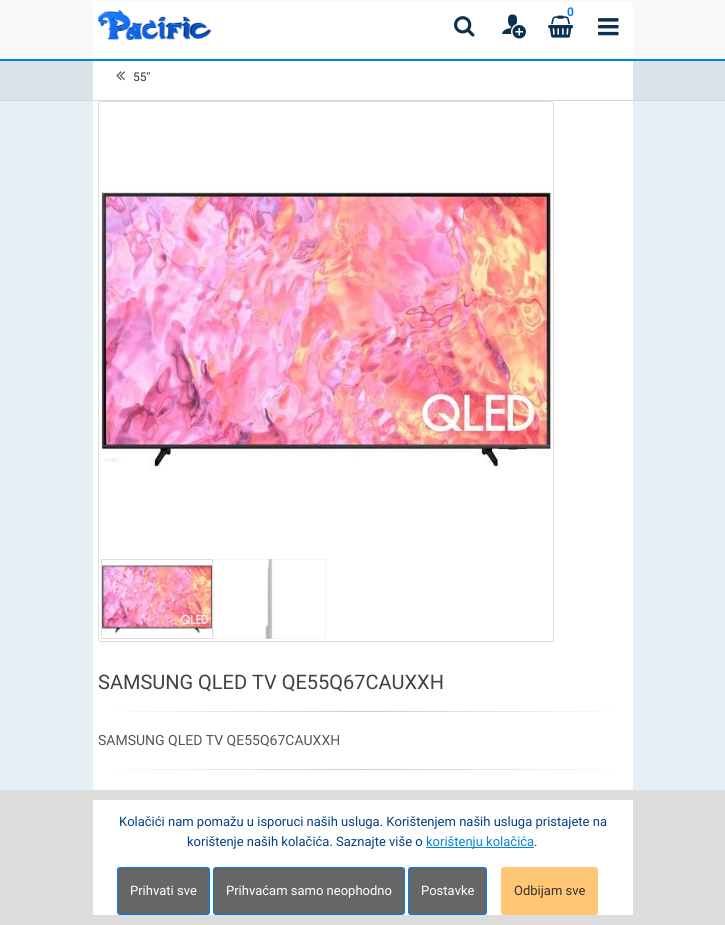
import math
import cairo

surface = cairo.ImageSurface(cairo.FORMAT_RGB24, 725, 925)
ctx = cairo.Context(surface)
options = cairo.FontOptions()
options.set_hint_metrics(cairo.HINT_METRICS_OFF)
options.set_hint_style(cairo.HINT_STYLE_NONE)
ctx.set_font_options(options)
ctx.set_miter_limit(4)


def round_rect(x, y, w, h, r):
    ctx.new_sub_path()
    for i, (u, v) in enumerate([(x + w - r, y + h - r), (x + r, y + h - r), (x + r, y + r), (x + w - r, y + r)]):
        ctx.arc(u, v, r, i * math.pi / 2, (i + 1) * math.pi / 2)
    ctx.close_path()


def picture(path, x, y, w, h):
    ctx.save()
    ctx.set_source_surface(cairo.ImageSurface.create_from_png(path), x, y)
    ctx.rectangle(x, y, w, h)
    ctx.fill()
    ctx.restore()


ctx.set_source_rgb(0.898, 0.937, 0.957)
ctx.paint()
ctx.set_source_rgb(0.976, 0.976, 0.976)
ctx.rectangle(0, 0, 725, 59)
ctx.fill()
ctx.set_source_rgb(0.016, 0.522, 0.882)
ctx.rectangle(0, 59, 725, 2)
ctx.fill()
ctx.set_source_rgb(1, 1, 1)
ctx.rectangle(93, 2, 540, 55)
ctx.fill()
picture("img1.png", 97, 10, 115, 30)
ctx.select_font_face("Roboto", cairo.FONT_SLANT_NORMAL, cairo.FONT_WEIGHT_BOLD)
ctx.set_font_size(12)
ctx.set_source_rgb(0.016, 0.522, 0.882)
ctx.move_to(567, 16)
ctx.show_text("0")
picture("img2.png", 548, 15, 26, 23)
picture("img3.png", 454, 16, 21, 21)
picture("img4.png", 502, 14, 24, 25)
picture("img5.png", 598, 18, 21, 18)
ctx.set_source_rgb(0.855, 0.89, 0.91)
ctx.rectangle(0, 61, 725, 39)
ctx.fill()
ctx.set_source_rgb(0.812, 0.847, 0.863)
ctx.rectangle(0, 100, 725, 1)
ctx.fill()
ctx.set_source_rgb(1, 1, 1)
ctx.rectangle(93, 61, 540, 39)
ctx.fill()
picture("img6.png", 116, 71, 9, 10)
ctx.select_font_face("Roboto")
ctx.set_source_rgb(0.2, 0.2, 0.2)
ctx.move_to(133, 81)
ctx.show_text("55\"")
ctx.set_source_rgb(1, 1, 1)
ctx.rectangle(93, 101, 540, 689)
ctx.fill()
round_rect(98.5, 101.5, 455, 540, 2.5)
ctx.set_source_rgb(0.867, 0.867, 0.867)
ctx.set_line_width(1)
ctx.stroke()
picture("img7.png", 101, 184, 450, 288)
picture("img8.png", 102, 565, 110, 68)
ctx.rectangle(101.5, 559.5, 111, 79)
ctx.stroke()
picture("img9.png", 265, 559, 8, 80)
ctx.rectangle(213.5, 559.5, 112, 79)
ctx.set_source_rgba(0.867, 0.867, 0.867, 0.3)
ctx.stroke()
ctx.set_font_size(20)
ctx.set_source_rgb(0.255, 0.255, 0.255)
ctx.move_to(98, 689)
ctx.show_text("SAMSUNG QLED TV QE55Q67CAUXXH")
gradient = cairo.LinearGradient(98, 712, 628, 712)
gradient.add_color_stop_rgba(0, 1, 1, 1, 1)
gradient.add_color_stop_rgba(0.5, 0.8, 0.8, 0.8, 1)
gradient.add_color_stop_rgba(1, 1, 1, 1, 1)
ctx.set_source(gradient)
ctx.rectangle(111, 711, 504, 1)
ctx.fill()
ctx.set_font_size(14)
ctx.set_source_rgb(0.333, 0.333, 0.333)
ctx.move_to(98, 745)
ctx.show_text("SAMSUNG QLED TV QE55Q67CAUXXH")
gradient = cairo.LinearGradient(98, 770, 628, 770)
gradient.add_color_stop_rgba(0, 1, 1, 1, 1)
gradient.add_color_stop_rgba(0.5, 0.8, 0.8, 0.8, 1)
gradient.add_color_stop_rgba(1, 1, 1, 1, 1)
ctx.set_source(gradient)
ctx.rectangle(111, 769, 504, 1)
ctx.fill()
ctx.set_source_rgb(0.867, 0.867, 0.867)
ctx.rectangle(0, 790, 725, 135)
ctx.fill()
ctx.set_source_rgb(1, 1, 1)
ctx.rectangle(93, 800, 540, 115)
ctx.fill()
ctx.set_font_size(13)
ctx.set_source_rgb(0, 0.251, 0.522)
ctx.move_to(119, 826)
ctx.show_text("Kolačići nam pomažu u isporuci naših usluga. Korištenjem naših usluga pristajete na")
ctx.move_to(187, 846)
ctx.show_text("korištenje naših kolačića. Saznajte više o")
ctx.set_source_rgb(0.016, 0.522, 0.882)
ctx.rectangle(426, 847, 108, 1)
ctx.fill()
ctx.move_to(426, 846)
ctx.show_text("korištenju kolačića")
ctx.set_source_rgb(0, 0.251, 0.522)
ctx.move_to(534, 846)
ctx.show_text(".")
ctx.set_source_rgb(0.4, 0.4, 0.4)
round_rect(117.5, 867.5, 92, 47, 2.5)
ctx.fill_preserve()
ctx.set_source_rgb(0, 0.482, 1)
ctx.stroke()
ctx.set_source_rgb(1, 1, 1)
ctx.move_to(130, 895)
ctx.show_text("Prihvati sve")
ctx.set_source_rgb(0.4, 0.4, 0.4)
round_rect(213.5, 867.5, 191, 47, 2.5)
ctx.fill_preserve()
ctx.set_source_rgb(0, 0.482, 1)
ctx.stroke()
ctx.set_source_rgb(1, 1, 1)
ctx.move_to(226, 895)
ctx.show_text("Prihvaćam samo neophodno")
ctx.set_source_rgb(0.4, 0.4, 0.4)
round_rect(408.5, 867.5, 78, 47, 2.5)
ctx.fill_preserve()
ctx.set_source_rgb(0, 0.482, 1)
ctx.stroke()
ctx.set_source_rgb(1, 1, 1)
ctx.move_to(421, 895)
ctx.show_text("Postavke")
ctx.set_source_rgb(1, 0.776, 0.463)
round_rect(501, 867, 97, 48, 3)
ctx.fill()
ctx.set_source_rgb(0.2, 0.2, 0.2)
ctx.move_to(514, 895)
ctx.show_text("Odbijam sve")
surface.write_to_png("page.png")
